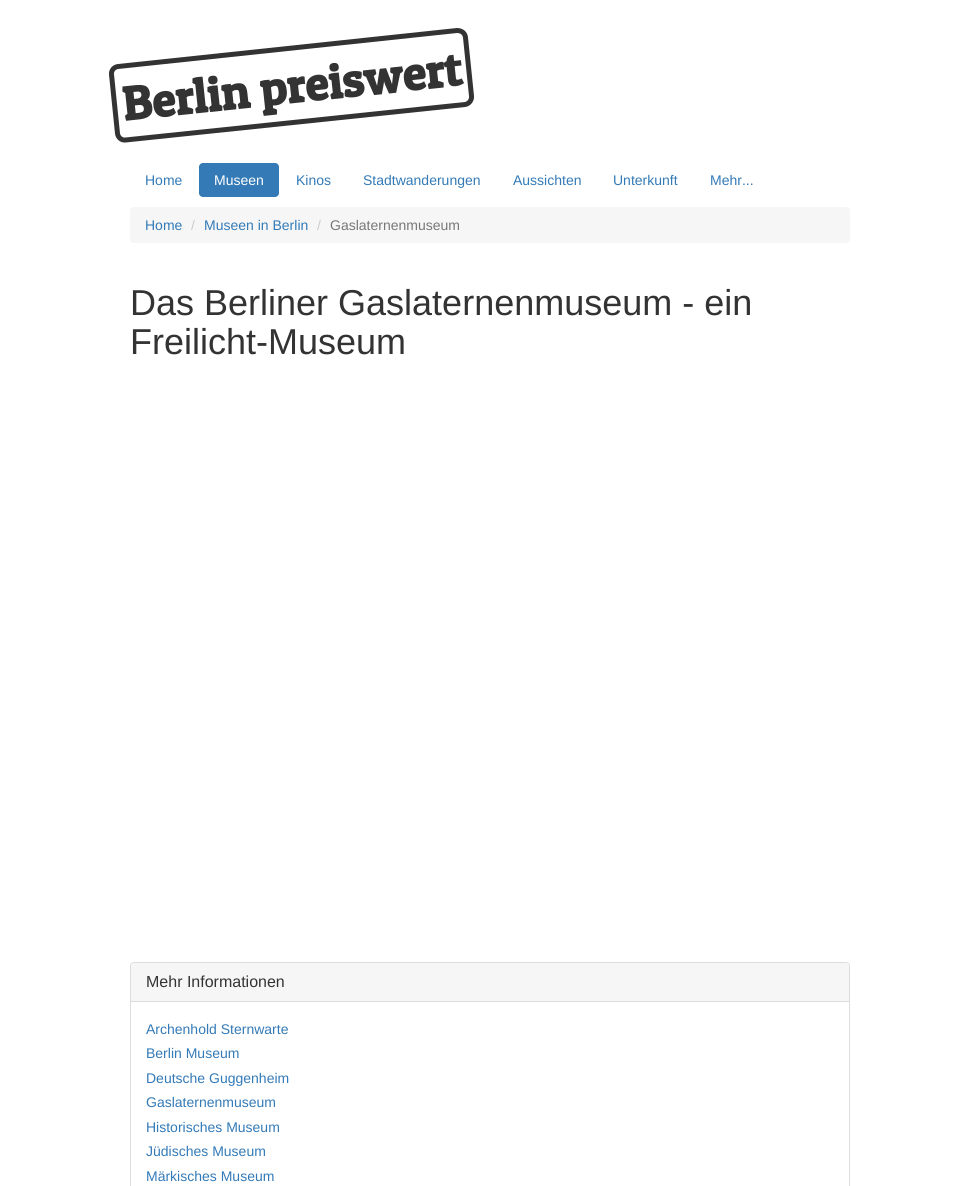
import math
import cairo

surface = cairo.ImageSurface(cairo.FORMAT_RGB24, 980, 1186)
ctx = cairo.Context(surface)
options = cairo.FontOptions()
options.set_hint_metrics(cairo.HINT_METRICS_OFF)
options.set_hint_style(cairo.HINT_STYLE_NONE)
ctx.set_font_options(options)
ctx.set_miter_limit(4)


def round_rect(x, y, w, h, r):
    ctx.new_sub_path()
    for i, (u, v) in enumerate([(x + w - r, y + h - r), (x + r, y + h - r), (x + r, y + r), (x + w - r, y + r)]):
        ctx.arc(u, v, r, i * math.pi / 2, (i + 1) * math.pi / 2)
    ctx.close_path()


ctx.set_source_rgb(1, 1, 1)
ctx.paint()
ctx.new_path()
ctx.move_to(118, 66.5)
ctx.line_to(457, 30.5)
ctx.curve_to(461.5, 30.5, 465, 33, 465.5, 37.5)
ctx.line_to(471.5, 96)
ctx.curve_to(472, 100, 469, 104, 465, 104.5)
ctx.line_to(125.5, 140)
ctx.curve_to(121.5, 140.5, 118, 137.5, 117.5, 133.5)
ctx.line_to(111.5, 74.5)
ctx.curve_to(111, 70.5, 114, 67, 118, 66.5)
ctx.close_path()
ctx.set_source_rgb(0.2, 0.2, 0.2)
ctx.set_line_width(5)
ctx.stroke()
ctx.select_font_face("Patua One", cairo.FONT_SLANT_NORMAL, cairo.FONT_WEIGHT_BOLD)
ctx.set_font_size(48)
ctx.save()
ctx.translate(124, 121)
ctx.rotate(-6 * math.pi / 180)
ctx.move_to(0, 0)
ctx.show_text("Berlin preiswert")
ctx.restore()
ctx.select_font_face("Liberation Sans")
ctx.set_font_size(14)
ctx.set_source_rgb(0.2, 0.478, 0.718)
ctx.move_to(145, 185)
ctx.show_text("Home")
round_rect(199, 163, 80, 34, 4)
ctx.fill()
ctx.set_source_rgb(1, 1, 1)
ctx.move_to(214, 185)
ctx.show_text("Museen")
ctx.set_source_rgb(0.2, 0.478, 0.718)
ctx.move_to(296, 185)
ctx.show_text("Kinos")
ctx.move_to(363, 185)
ctx.show_text("Stadtwanderungen")
ctx.move_to(513, 185)
ctx.show_text("Aussichten")
ctx.move_to(613, 185)
ctx.show_text("Unterkunft")
ctx.move_to(710, 185)
ctx.show_text("Mehr...")
ctx.set_source_rgb(0.961, 0.961, 0.961)
round_rect(130, 207, 720, 36, 4)
ctx.fill()
ctx.set_source_rgb(0.2, 0.478, 0.718)
ctx.move_to(145, 230)
ctx.show_text("Home")
ctx.set_source_rgb(0.8, 0.8, 0.8)
ctx.move_to(191, 230)
ctx.show_text("/")
ctx.set_source_rgb(0.2, 0.478, 0.718)
ctx.move_to(204, 230)
ctx.show_text("Museen in Berlin")
ctx.set_source_rgb(0.8, 0.8, 0.8)
ctx.move_to(317, 230)
ctx.show_text("/")
ctx.set_source_rgb(0.467, 0.467, 0.467)
ctx.move_to(330, 230)
ctx.show_text("Gaslaternenmuseum")
ctx.set_font_size(36)
ctx.set_source_rgb(0.2, 0.2, 0.2)
ctx.move_to(130, 315)
ctx.show_text("Das Berliner Gaslaternenmuseum - ein")
ctx.move_to(130, 354)
ctx.show_text("Freilicht-Museum")
round_rect(130.5, 962.5, 719, 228, 3.5)
ctx.set_source_rgb(0.867, 0.867, 0.867)
ctx.set_line_width(1)
ctx.stroke()
ctx.set_source_rgb(0.961, 0.961, 0.961)
ctx.new_path()
ctx.move_to(134, 963)
ctx.line_to(846, 963)
ctx.curve_to(847.5, 963, 849, 964.5, 849, 966)
ctx.line_to(849, 1002)
ctx.line_to(131, 1002)
ctx.line_to(131, 966)
ctx.curve_to(131, 964.5, 132.5, 963, 134, 963)
ctx.close_path()
ctx.fill()
ctx.set_source_rgb(0.867, 0.867, 0.867)
ctx.rectangle(131, 1001, 718, 1)
ctx.fill()
ctx.set_font_size(16)
ctx.set_source_rgb(0.2, 0.2, 0.2)
ctx.move_to(146, 987)
ctx.show_text("Mehr Informationen")
ctx.set_font_size(14)
ctx.set_source_rgb(0.2, 0.478, 0.718)
ctx.move_to(146, 1034)
ctx.show_text("Archenhold Sternwarte")
ctx.move_to(146, 1058)
ctx.show_text("Berlin Museum")
ctx.move_to(146, 1083)
ctx.show_text("Deutsche Guggenheim")
ctx.move_to(146, 1107)
ctx.show_text("Gaslaternenmuseum")
ctx.move_to(146, 1132)
ctx.show_text("Historisches Museum")
ctx.move_to(146, 1156)
ctx.show_text("Jüdisches Museum")
ctx.move_to(146, 1181)
ctx.show_text("Märkisches Museum")
surface.write_to_png("page.png")
